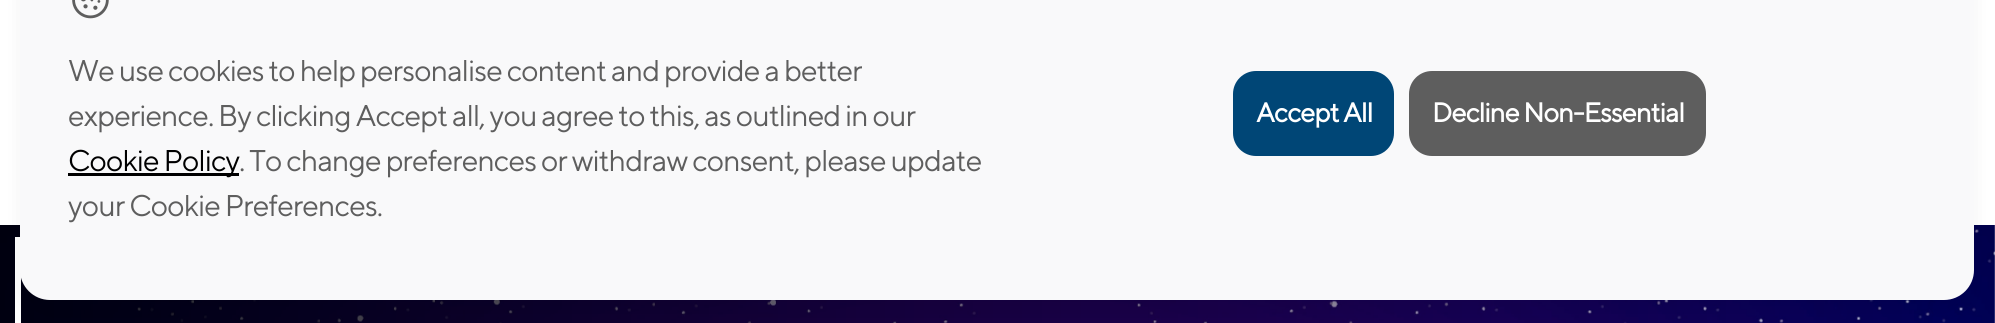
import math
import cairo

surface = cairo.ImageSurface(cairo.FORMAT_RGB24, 1995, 323)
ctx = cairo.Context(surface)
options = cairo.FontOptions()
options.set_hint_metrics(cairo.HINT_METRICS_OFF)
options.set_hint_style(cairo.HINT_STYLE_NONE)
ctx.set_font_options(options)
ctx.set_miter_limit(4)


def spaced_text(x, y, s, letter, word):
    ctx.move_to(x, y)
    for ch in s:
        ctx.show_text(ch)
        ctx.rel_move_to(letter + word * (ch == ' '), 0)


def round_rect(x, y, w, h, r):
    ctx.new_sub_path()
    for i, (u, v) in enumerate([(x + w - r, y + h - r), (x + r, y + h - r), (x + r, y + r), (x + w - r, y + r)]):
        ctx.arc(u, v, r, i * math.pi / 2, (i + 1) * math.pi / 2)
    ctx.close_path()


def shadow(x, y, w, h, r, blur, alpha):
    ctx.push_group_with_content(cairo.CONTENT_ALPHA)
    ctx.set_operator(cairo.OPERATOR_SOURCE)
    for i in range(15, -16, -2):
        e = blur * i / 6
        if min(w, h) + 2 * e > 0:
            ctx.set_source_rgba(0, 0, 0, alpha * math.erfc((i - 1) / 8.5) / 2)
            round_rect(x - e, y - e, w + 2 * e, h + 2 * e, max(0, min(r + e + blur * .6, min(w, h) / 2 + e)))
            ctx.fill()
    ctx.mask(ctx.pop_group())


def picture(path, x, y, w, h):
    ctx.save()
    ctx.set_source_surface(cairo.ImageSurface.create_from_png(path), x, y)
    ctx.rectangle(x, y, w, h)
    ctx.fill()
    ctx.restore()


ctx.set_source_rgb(1, 1, 1)
ctx.paint()
picture("img2.png", 0, 225, 1995, 98)
gradient = cairo.LinearGradient(0, 263, 1995, 262)
gradient.add_color_stop_rgba(0, 0, 0, 0, 0.8)
gradient.add_color_stop_rgba(1, 0, 0, 0, 0)
ctx.set_source(gradient)
ctx.rectangle(0, 225, 1933, 98)
ctx.fill()
ctx.set_source_rgb(1, 1, 1)
ctx.rectangle(15, 237, 6, 86)
ctx.fill()
ctx.set_source_rgb(0, 0, 0)
shadow(26, -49, 1942, 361, 24, 12, 0.08)
ctx.set_source_rgb(0.973, 0.976, 0.98)
round_rect(20, -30, 1954, 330, 30)
ctx.fill()
picture("img1.png", 72, 0, 37, 19)
ctx.select_font_face("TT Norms")
ctx.set_font_size(30)
ctx.set_source_rgb(0.369, 0.369, 0.369)
spaced_text(68, 81, "We use cookies to help personalise content and provide a better", -0.9, 0)
spaced_text(68, 126, "experience. By clicking Accept all, you agree to this, as outlined in our", -0.9, 0)
ctx.set_source_rgb(0, 0, 0)
ctx.rectangle(68, 173, 171, 3)
ctx.fill()
spaced_text(68, 171, "Cookie Policy", -0.9, 0)
ctx.set_source_rgb(0.369, 0.369, 0.369)
spaced_text(239, 171, ". To change preferences or withdraw consent, please update", -0.9, 0)
spaced_text(68, 216, "your Cookie Preferences.", -0.9, 0)
ctx.set_source_rgb(0, 0.275, 0.463)
round_rect(1233, 71, 161, 85, 23)
ctx.fill()
ctx.select_font_face("TT Norms", cairo.FONT_SLANT_NORMAL, cairo.FONT_WEIGHT_BOLD)
ctx.set_font_size(27)
ctx.set_source_rgb(1, 1, 1)
spaced_text(1256, 122, "Accept All", -0.8, 0)
ctx.set_source_rgb(0.369, 0.369, 0.369)
round_rect(1409, 71, 297, 85, 23)
ctx.fill()
ctx.set_source_rgb(1, 1, 1)
spaced_text(1432, 122, "Decline Non-Essential", -0.8, 0)
surface.write_to_png("page.png")
